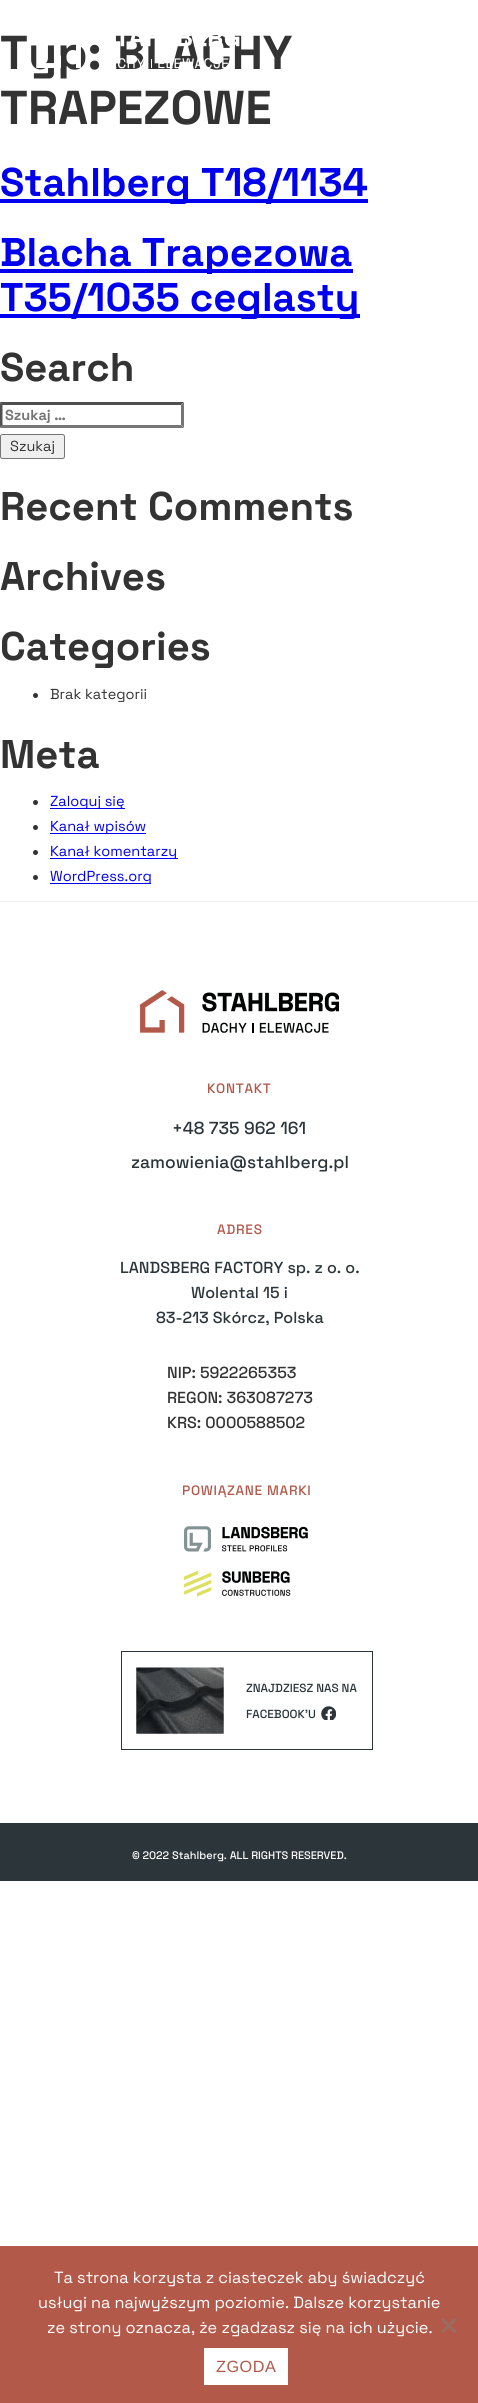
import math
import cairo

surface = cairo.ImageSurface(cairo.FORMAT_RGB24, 478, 2403)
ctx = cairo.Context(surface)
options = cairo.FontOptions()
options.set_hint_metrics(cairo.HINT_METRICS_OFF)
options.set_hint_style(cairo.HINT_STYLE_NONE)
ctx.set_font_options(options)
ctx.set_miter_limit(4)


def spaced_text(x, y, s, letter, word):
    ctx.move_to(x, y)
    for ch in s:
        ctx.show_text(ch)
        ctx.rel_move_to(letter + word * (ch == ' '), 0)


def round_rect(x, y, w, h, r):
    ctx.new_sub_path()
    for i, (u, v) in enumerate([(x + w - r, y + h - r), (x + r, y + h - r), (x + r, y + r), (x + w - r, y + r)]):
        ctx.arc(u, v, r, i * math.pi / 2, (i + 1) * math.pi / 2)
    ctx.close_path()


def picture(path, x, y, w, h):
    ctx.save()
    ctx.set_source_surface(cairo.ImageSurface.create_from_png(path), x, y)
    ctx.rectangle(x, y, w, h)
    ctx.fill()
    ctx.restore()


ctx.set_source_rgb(1, 1, 1)
ctx.paint()
ctx.select_font_face("Space Grotesk", cairo.FONT_SLANT_NORMAL, cairo.FONT_WEIGHT_BOLD)
ctx.set_font_size(47.5)
ctx.set_source_rgb(0.2, 0.2, 0.2)
ctx.move_to(0, 69)
ctx.show_text("Typ: BLACHY")
ctx.move_to(0, 124)
ctx.show_text("TRAPEZOWE")
ctx.set_source_rgb(0, 0, 0.933)
ctx.rectangle(0, 199, 368, 4)
ctx.fill()
ctx.set_font_size(40)
ctx.move_to(0, 196)
ctx.show_text("Stahlberg T18/1134")
ctx.rectangle(0, 269, 353, 4)
ctx.fill()
ctx.move_to(0, 266)
ctx.show_text("Blacha Trapezowa")
ctx.rectangle(0, 314, 360, 4)
ctx.fill()
ctx.move_to(0, 311)
ctx.show_text("T35/1035 ceglasty")
picture("img1.png", 36, 35, 204, 34)
ctx.set_source_rgb(0.2, 0.2, 0.2)
ctx.move_to(0, 381)
ctx.show_text("Search")
ctx.set_source_rgb(0.31, 0.31, 0.31)
ctx.new_path()
ctx.move_to(0, 402)
ctx.line_to(184, 402)
ctx.line_to(181, 405)
ctx.line_to(2, 405)
ctx.close_path()
ctx.fill()
ctx.set_source_rgb(0.463, 0.463, 0.463)
ctx.new_path()
ctx.move_to(184, 402.5)
ctx.line_to(184, 427.5)
ctx.line_to(181, 425)
ctx.line_to(181, 405)
ctx.close_path()
ctx.fill()
ctx.new_path()
ctx.move_to(184, 428)
ctx.line_to(0, 428)
ctx.line_to(2, 425)
ctx.line_to(181, 425)
ctx.close_path()
ctx.fill()
ctx.set_source_rgb(0.31, 0.31, 0.31)
ctx.new_path()
ctx.move_to(0, 427.5)
ctx.line_to(0, 402.5)
ctx.line_to(2.5, 405)
ctx.line_to(2.5, 425)
ctx.close_path()
ctx.fill()
ctx.set_font_size(14.5)
ctx.set_source_rgb(0.459, 0.459, 0.459)
ctx.move_to(5, 420)
ctx.show_text("Szukaj …")
ctx.set_source_rgb(0.937, 0.937, 0.937)
round_rect(0.5, 434.5, 64, 24, 2)
ctx.fill_preserve()
ctx.set_source_rgb(0.463, 0.463, 0.463)
ctx.set_line_width(1)
ctx.stroke()
ctx.select_font_face("Space Grotesk")
ctx.set_source_rgb(0.2, 0.2, 0.2)
ctx.move_to(10, 451)
ctx.show_text("Szukaj")
ctx.select_font_face("Space Grotesk", cairo.FONT_SLANT_NORMAL, cairo.FONT_WEIGHT_BOLD)
ctx.set_font_size(40)
ctx.move_to(0, 520)
ctx.show_text("Recent Comments")
ctx.move_to(0, 590)
ctx.show_text("Archives")
ctx.move_to(0, 660)
ctx.show_text("Categories")
ctx.new_path()
ctx.arc(35.5, 695.5, 2.5, 0, 2 * math.pi)
ctx.fill()
ctx.select_font_face("Space Grotesk")
ctx.set_font_size(14.5)
ctx.move_to(50, 699)
ctx.show_text("Brak kategorii")
ctx.select_font_face("Space Grotesk", cairo.FONT_SLANT_NORMAL, cairo.FONT_WEIGHT_BOLD)
ctx.set_font_size(40)
ctx.move_to(0, 768)
ctx.show_text("Meta")
ctx.new_path()
ctx.arc(35.5, 802.5, 2.5, 0, 2 * math.pi)
ctx.fill()
ctx.set_source_rgb(0, 0, 0.933)
ctx.rectangle(50, 808, 75, 1)
ctx.fill()
ctx.select_font_face("Space Grotesk")
ctx.set_font_size(14.5)
ctx.move_to(50, 806)
ctx.show_text("Zaloguj się")
ctx.set_source_rgb(0.2, 0.2, 0.2)
ctx.new_path()
ctx.arc(35.5, 827.5, 2.5, 0, 2 * math.pi)
ctx.fill()
ctx.set_source_rgb(0, 0, 0.933)
ctx.rectangle(50, 833, 96, 1)
ctx.fill()
ctx.move_to(50, 831)
ctx.show_text("Kanał wpisów")
ctx.set_source_rgb(0.2, 0.2, 0.2)
ctx.new_path()
ctx.arc(35.5, 852.5, 2.5, 0, 2 * math.pi)
ctx.fill()
ctx.set_source_rgb(0, 0, 0.933)
ctx.rectangle(50, 858, 128, 1)
ctx.fill()
ctx.move_to(50, 856)
ctx.show_text("Kanał komentarzy")
ctx.set_source_rgb(0.2, 0.2, 0.2)
ctx.new_path()
ctx.arc(35.5, 877.5, 2.5, 0, 2 * math.pi)
ctx.fill()
ctx.set_source_rgb(0, 0, 0.933)
ctx.rectangle(50, 883, 101, 1)
ctx.fill()
ctx.move_to(50, 881)
ctx.show_text("WordPress.org")
ctx.set_source_rgb(0.941, 0.949, 0.953)
ctx.rectangle(0, 901, 478, 1)
ctx.fill()
picture("img2.png", 140, 990, 199, 43)
ctx.select_font_face("Space Grotesk Medium")
ctx.set_font_size(13.6)
ctx.set_source_rgb(0.698, 0.349, 0.29)
spaced_text(207, 1093, "KONTAKT", 0.7, 0)
ctx.set_font_size(17.4)
ctx.set_source_rgb(0.169, 0.208, 0.227)
ctx.move_to(172, 1134)
ctx.show_text("+48 735 962 161")
ctx.move_to(131, 1168)
ctx.show_text("zamowienia@stahlberg.pl")
ctx.set_font_size(13.6)
ctx.set_source_rgb(0.698, 0.349, 0.29)
spaced_text(217, 1234, "ADRES", 0.7, 0)
ctx.set_font_size(16)
ctx.set_source_rgb(0.169, 0.208, 0.227)
ctx.move_to(120, 1273)
ctx.show_text("LANDSBERG FACTORY sp. z o. o.")
ctx.move_to(191, 1298)
ctx.show_text("Wolental 15 i")
ctx.move_to(156, 1323)
ctx.show_text("83-213 Skórcz, Polska")
ctx.set_source_rgb(0.2, 0.2, 0.2)
ctx.move_to(167, 1378)
ctx.show_text("NIP: 5922265353")
ctx.move_to(167, 1403)
ctx.show_text("REGON: 363087273")
ctx.move_to(167, 1428)
ctx.show_text("KRS: 0000588502")
ctx.set_font_size(13.6)
ctx.set_source_rgb(0.698, 0.349, 0.29)
spaced_text(182, 1495, "POWIĄZANE MARKI", 0.7, 0)
picture("img3.png", 184, 1526, 124, 26)
picture("img4.png", 184, 1570, 107, 27)
ctx.rectangle(121.5, 1651.5, 251, 98)
ctx.set_source_rgb(0.169, 0.208, 0.227)
ctx.stroke()
picture("img5.png", 136, 1667, 88, 67)
ctx.set_font_size(11.75)
ctx.move_to(246, 1692)
ctx.show_text("ZNAJDZIESZ NAS NA")
ctx.move_to(246, 1718)
ctx.show_text("FACEBOOK’U")
picture("img6.png", 321, 1706, 15, 14)
ctx.rectangle(0, 1823, 478, 58)
ctx.fill()
ctx.set_font_size(10.9)
ctx.set_source_rgb(1, 1, 1)
ctx.move_to(132, 1859)
ctx.show_text("© 2022 Stahlberg. ALL RIGHTS RESERVED.")
ctx.set_source_rgb(0.698, 0.349, 0.29)
ctx.rectangle(0, 2246, 478, 157)
ctx.fill()
ctx.select_font_face("Space Grotesk")
ctx.set_font_size(16.25)
ctx.set_source_rgb(1, 1, 1)
ctx.move_to(54, 2283)
ctx.show_text("Ta strona korzysta z ciasteczek aby świadczyć")
ctx.move_to(38, 2308)
ctx.show_text("usługi na najwyższym poziomie. Dalsze korzystanie")
ctx.move_to(47, 2333)
ctx.show_text("ze strony oznacza, że zgadzasz się na ich użycie.")
ctx.set_source_rgb(0.6, 0.427, 0.396)
ctx.new_path()
ctx.move_to(454.5, 2318)
ctx.line_to(456.5, 2320)
ctx.line_to(443, 2333)
ctx.line_to(441, 2331.5)
ctx.close_path()
ctx.fill()
ctx.new_path()
ctx.move_to(441, 2320)
ctx.line_to(443, 2318)
ctx.line_to(456.5, 2331.5)
ctx.line_to(454.5, 2333)
ctx.close_path()
ctx.fill()
ctx.set_source_rgb(1, 1, 1)
ctx.rectangle(204, 2348, 84, 37)
ctx.fill()
ctx.select_font_face("Liberation Sans")
ctx.set_source_rgb(0.698, 0.349, 0.29)
spaced_text(216, 2372, "ZGODA", 0.5, 0)
surface.write_to_png("page.png")
